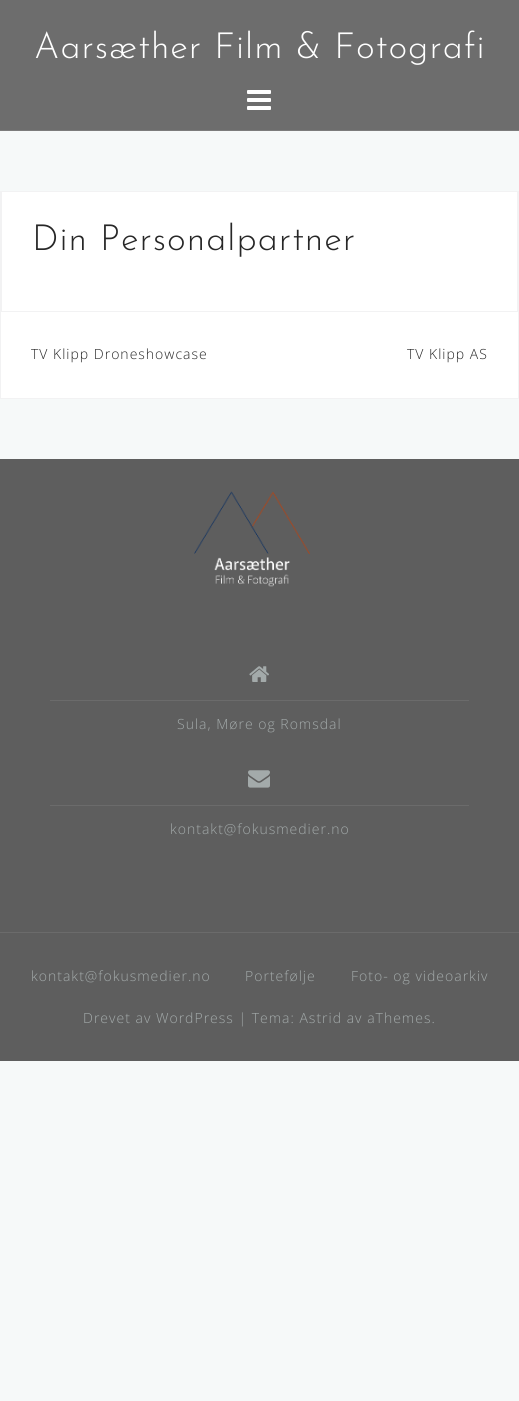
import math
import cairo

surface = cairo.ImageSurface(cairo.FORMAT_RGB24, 519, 1401)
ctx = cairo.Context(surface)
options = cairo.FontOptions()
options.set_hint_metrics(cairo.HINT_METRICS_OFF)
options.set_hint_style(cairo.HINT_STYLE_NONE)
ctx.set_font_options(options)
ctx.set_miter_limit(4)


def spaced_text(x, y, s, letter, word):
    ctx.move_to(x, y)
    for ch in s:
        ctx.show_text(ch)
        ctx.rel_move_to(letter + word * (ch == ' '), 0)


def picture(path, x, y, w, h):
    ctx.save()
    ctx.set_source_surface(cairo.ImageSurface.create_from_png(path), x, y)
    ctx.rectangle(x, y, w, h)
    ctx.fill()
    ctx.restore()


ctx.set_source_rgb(0.961, 0.976, 0.973)
ctx.paint()
ctx.set_source_rgb(0.427, 0.427, 0.427)
ctx.rectangle(0, 0, 519, 130)
ctx.fill()
ctx.set_source_rgb(0.486, 0.486, 0.486)
ctx.rectangle(0, 130, 519, 1)
ctx.fill()
ctx.select_font_face("Josefin Sans Thin")
ctx.set_font_size(36)
ctx.set_source_rgb(1, 1, 1)
spaced_text(34, 58, "Aarsæther Film & Fotografi", 1, 0)
picture("img1.png", 247, 90, 24, 20)
ctx.rectangle(1, 192, 517, 206)
ctx.fill()
ctx.set_source_rgb(0.949, 0.949, 0.953)
ctx.rectangle(518, 191, 1, 208)
ctx.fill()
ctx.rectangle(0, 398, 519, 1)
ctx.fill()
ctx.rectangle(0, 191, 1, 208)
ctx.fill()
ctx.rectangle(1.5, 191.5, 516, 120)
ctx.set_line_width(1)
ctx.stroke()
ctx.set_source_rgb(0.153, 0.153, 0.153)
spaced_text(32, 250, "Din Personalpartner", 1, 0)
ctx.select_font_face("Open Sans Light")
ctx.set_font_size(14)
spaced_text(31, 359, "TV Klipp Droneshowcase", 1, 0)
spaced_text(407, 359, "TV Klipp AS", 1, 0)
ctx.set_source_rgb(0.369, 0.369, 0.369)
ctx.rectangle(0, 459, 519, 473)
ctx.fill()
ctx.set_source_rgb(0.42, 0.42, 0.42)
ctx.rectangle(0, 932, 519, 1)
ctx.fill()
picture("img2.png", 194, 491, 116, 96)
picture("img3.png", 249, 666, 20, 16)
ctx.rectangle(50, 700, 419, 1)
ctx.fill()
ctx.set_source_rgb(0.639, 0.667, 0.667)
spaced_text(177, 729, "Sula, Møre og Romsdal", 1, 0)
picture("img4.png", 248, 770, 22, 18)
ctx.set_source_rgb(0.42, 0.42, 0.42)
ctx.rectangle(50, 805, 419, 1)
ctx.fill()
ctx.set_source_rgb(0.639, 0.667, 0.667)
spaced_text(170, 834, "kontakt@fokusmedier.no", 1, 0)
ctx.set_source_rgb(0.369, 0.369, 0.369)
ctx.rectangle(0, 933, 519, 128)
ctx.fill()
ctx.set_source_rgb(0.639, 0.667, 0.667)
spaced_text(31, 981, "kontakt@fokusmedier.no", 1, 0)
spaced_text(245, 981, "Portefølje", 1, 0)
spaced_text(351, 981, "Foto- og videoarkiv", 1, 0)
spaced_text(83, 1023, "Drevet av WordPress | Tema: Astrid av aThemes.", 1, 0)
surface.write_to_png("page.png")
